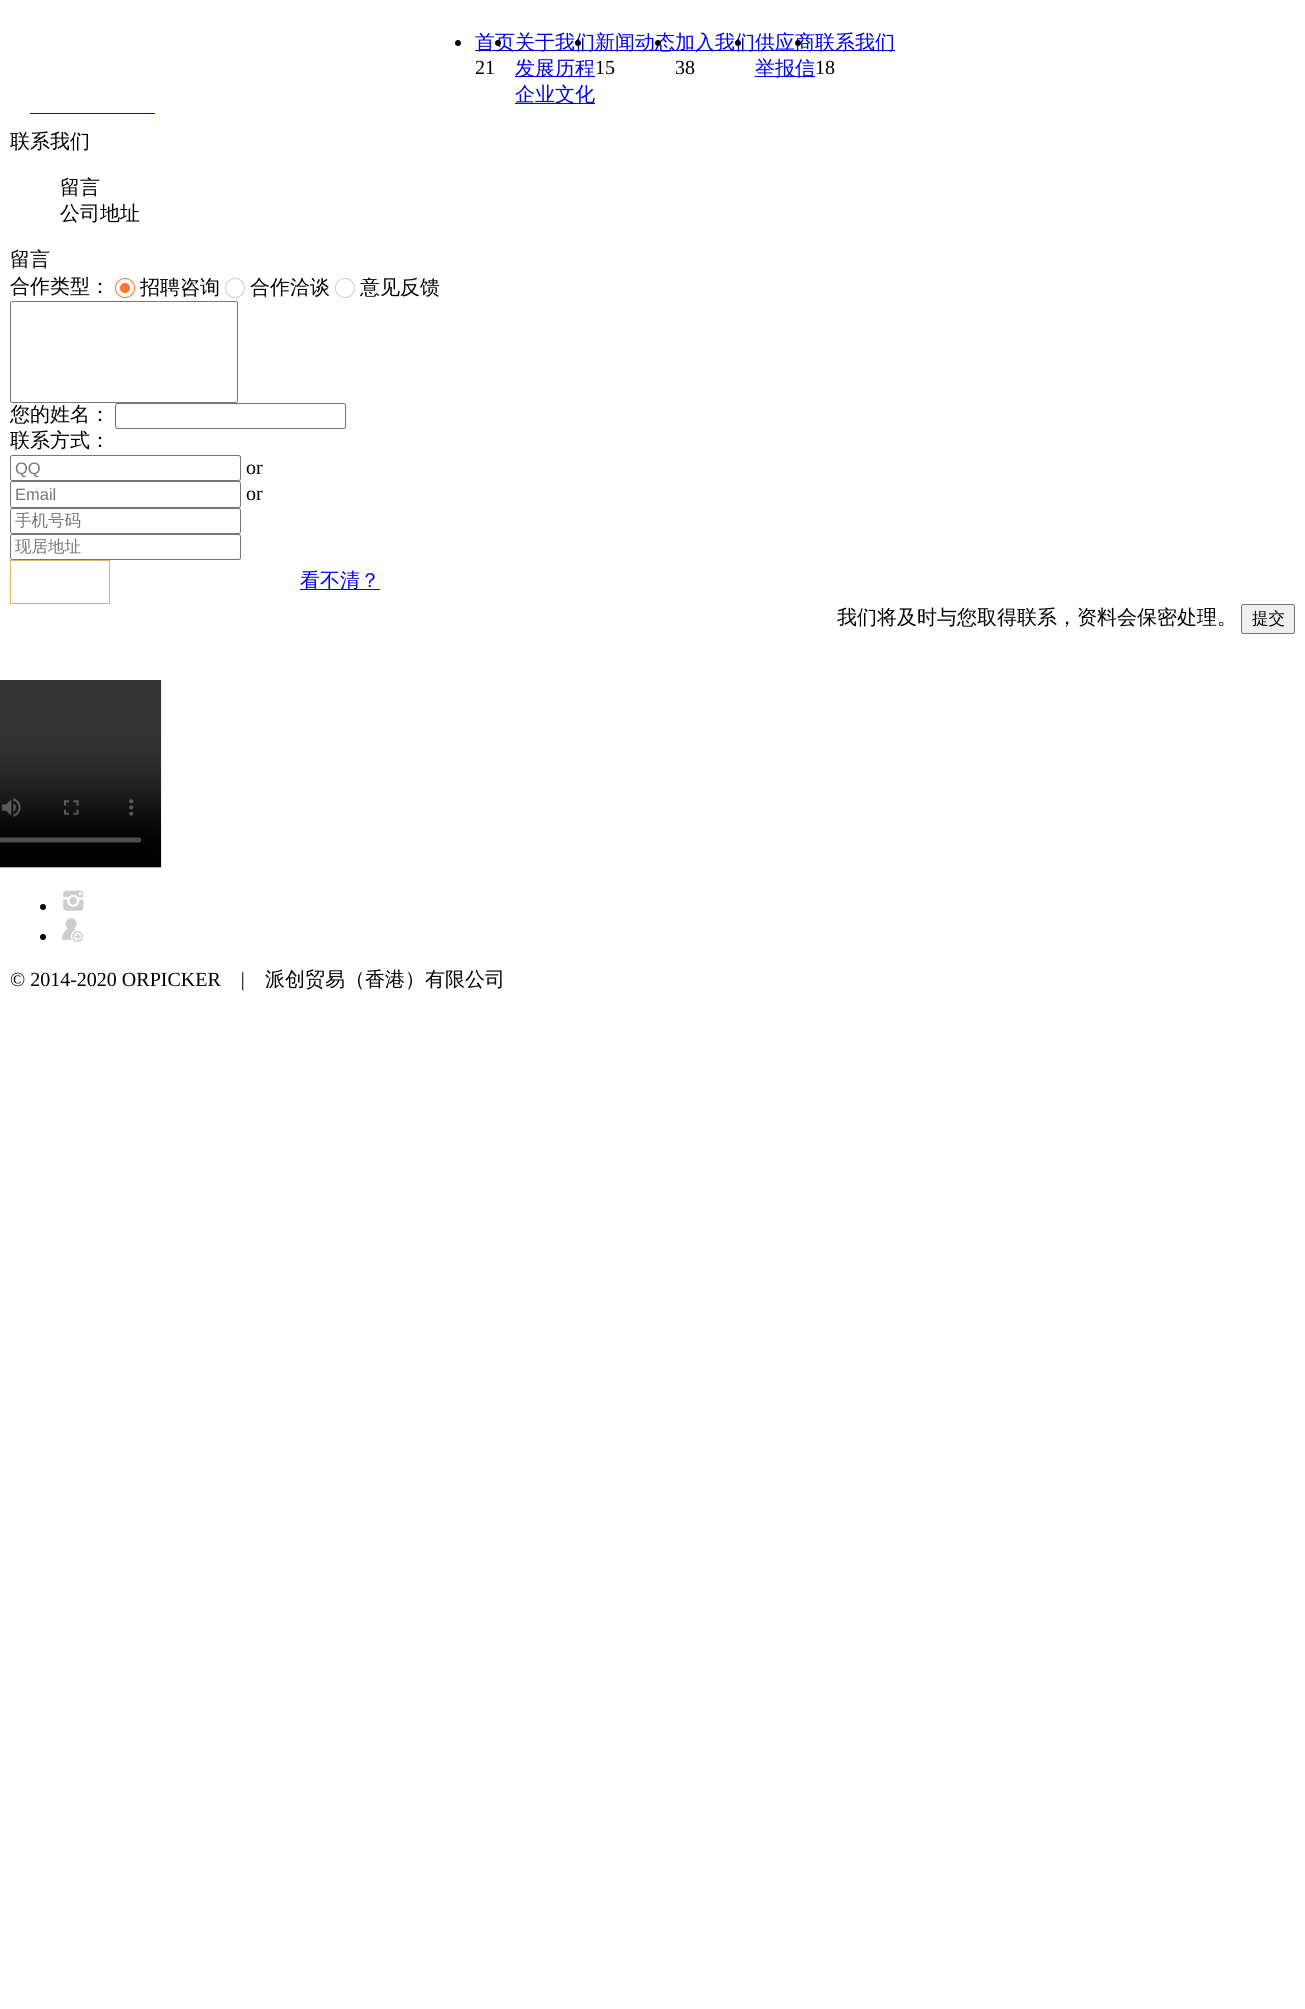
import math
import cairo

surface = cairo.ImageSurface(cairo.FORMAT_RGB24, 1305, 2009)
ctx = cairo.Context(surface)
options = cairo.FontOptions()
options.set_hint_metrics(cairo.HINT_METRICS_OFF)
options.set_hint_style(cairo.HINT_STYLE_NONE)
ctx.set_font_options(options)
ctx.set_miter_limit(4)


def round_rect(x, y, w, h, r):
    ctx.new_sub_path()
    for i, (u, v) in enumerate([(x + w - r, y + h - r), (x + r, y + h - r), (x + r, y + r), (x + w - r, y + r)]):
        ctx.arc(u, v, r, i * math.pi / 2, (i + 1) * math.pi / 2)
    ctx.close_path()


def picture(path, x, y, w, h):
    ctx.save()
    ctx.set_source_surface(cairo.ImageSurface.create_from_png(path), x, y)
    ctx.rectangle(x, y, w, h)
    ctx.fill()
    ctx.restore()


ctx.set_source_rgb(1, 1, 1)
ctx.paint()
ctx.set_source_rgb(0, 0, 0)
ctx.arc(458, 43, 3, 0, 2 * math.pi)
ctx.fill()
ctx.set_source_rgb(0, 0, 0.933)
ctx.rectangle(475, 50, 420, 1)
ctx.fill()
ctx.select_font_face("WenQuanYi Zen Hei Medium")
ctx.set_font_size(20)
ctx.move_to(475, 49)
ctx.show_text("首页关于我们新闻动态加入我们供应商联系我们")
ctx.select_font_face("Liberation Serif")
ctx.set_source_rgb(0, 0, 0)
ctx.move_to(475, 74)
ctx.show_text("21")
ctx.new_path()
ctx.arc(498, 43, 3, 0, 2 * math.pi)
ctx.fill()
ctx.set_source_rgb(0, 0, 0.933)
ctx.rectangle(515, 76, 80, 1)
ctx.fill()
ctx.select_font_face("WenQuanYi Zen Hei Medium")
ctx.move_to(515, 75)
ctx.show_text("发展历程")
ctx.rectangle(515, 103, 80, 1)
ctx.fill()
ctx.move_to(515, 101)
ctx.show_text("企业文化")
ctx.set_source_rgb(0, 0, 0)
ctx.new_path()
ctx.arc(578, 43, 3, 0, 2 * math.pi)
ctx.fill()
ctx.select_font_face("Liberation Serif")
ctx.move_to(595, 74)
ctx.show_text("15")
ctx.new_path()
ctx.arc(658, 43, 3, 0, 2 * math.pi)
ctx.fill()
ctx.move_to(675, 74)
ctx.show_text("38")
ctx.new_path()
ctx.arc(738, 43, 3, 0, 2 * math.pi)
ctx.fill()
ctx.set_source_rgb(0, 0, 0.933)
ctx.rectangle(755, 76, 60, 1)
ctx.fill()
ctx.select_font_face("WenQuanYi Zen Hei Medium")
ctx.move_to(755, 75)
ctx.show_text("举报信")
ctx.set_source_rgb(0, 0, 0)
ctx.new_path()
ctx.arc(798, 43, 3, 0, 2 * math.pi)
ctx.fill()
ctx.select_font_face("Liberation Serif")
ctx.move_to(815, 74)
ctx.show_text("18")
ctx.set_source_rgb(0, 0, 0.933)
ctx.rectangle(30, 113, 125, 1)
ctx.fill()
ctx.select_font_face("WenQuanYi Zen Hei Medium")
ctx.set_source_rgb(0, 0, 0)
ctx.move_to(10, 148)
ctx.show_text("联系我们")
ctx.move_to(60, 194)
ctx.show_text("留言")
ctx.move_to(60, 220)
ctx.show_text("公司地址")
ctx.move_to(10, 266)
ctx.show_text("留言")
ctx.move_to(10, 293)
ctx.show_text("合作类型：")
ctx.new_path()
ctx.arc(125, 288, 9.5, 0, 2 * math.pi)
ctx.set_source_rgb(1, 0.463, 0.192)
ctx.set_line_width(1)
ctx.stroke()
ctx.arc(125, 288, 5, 0, 2 * math.pi)
ctx.fill()
ctx.set_source_rgb(0, 0, 0)
ctx.move_to(140, 294)
ctx.show_text("招聘咨询")
ctx.new_path()
ctx.arc(235, 288, 9.5, 0, 2 * math.pi)
ctx.set_source_rgb(0.8, 0.8, 0.8)
ctx.stroke()
ctx.set_source_rgb(0, 0, 0)
ctx.move_to(250, 294)
ctx.show_text("合作洽谈")
ctx.new_path()
ctx.arc(345, 288, 9.5, 0, 2 * math.pi)
ctx.set_source_rgb(0.8, 0.8, 0.8)
ctx.stroke()
ctx.set_source_rgb(0, 0, 0)
ctx.move_to(360, 294)
ctx.show_text("意见反馈")
round_rect(10.5, 301.5, 227, 101, 2)
ctx.set_source_rgb(0.463, 0.463, 0.463)
ctx.stroke()
ctx.set_source_rgb(0, 0, 0)
ctx.move_to(10, 421)
ctx.show_text("您的姓名：")
round_rect(115.5, 403.5, 230, 25, 2)
ctx.set_source_rgb(0.463, 0.463, 0.463)
ctx.stroke()
ctx.set_source_rgb(0, 0, 0)
ctx.move_to(10, 447)
ctx.show_text("联系方式：")
round_rect(10.5, 455.5, 230, 25, 2)
ctx.set_source_rgb(0.463, 0.463, 0.463)
ctx.stroke()
ctx.select_font_face("Liberation Sans")
ctx.set_font_size(16.5)
ctx.set_source_rgb(0.459, 0.459, 0.459)
ctx.move_to(15, 474)
ctx.show_text("QQ")
ctx.select_font_face("Liberation Serif")
ctx.set_font_size(20)
ctx.set_source_rgb(0, 0, 0)
ctx.move_to(246, 474)
ctx.show_text("or")
round_rect(10.5, 481.5, 230, 26, 2)
ctx.set_source_rgb(0.463, 0.463, 0.463)
ctx.stroke()
ctx.select_font_face("Liberation Sans")
ctx.set_font_size(16.5)
ctx.set_source_rgb(0.459, 0.459, 0.459)
ctx.move_to(15, 500)
ctx.show_text("Email")
ctx.select_font_face("Liberation Serif")
ctx.set_font_size(20)
ctx.set_source_rgb(0, 0, 0)
ctx.move_to(246, 500)
ctx.show_text("or")
round_rect(10.5, 508.5, 230, 25, 2)
ctx.set_source_rgb(0.463, 0.463, 0.463)
ctx.stroke()
ctx.select_font_face("WenQuanYi Zen Hei Medium")
ctx.set_font_size(16.5)
ctx.set_source_rgb(0.459, 0.459, 0.459)
ctx.move_to(15, 526)
ctx.show_text("手机号码")
round_rect(10.5, 534.5, 230, 25, 2)
ctx.set_source_rgb(0.463, 0.463, 0.463)
ctx.stroke()
ctx.set_source_rgb(0.459, 0.459, 0.459)
ctx.move_to(15, 552)
ctx.show_text("现居地址")
ctx.rectangle(10.5, 560.5, 99, 43)
ctx.set_source_rgb(0.851, 0.729, 0.392)
ctx.stroke()
ctx.set_source_rgb(0, 0, 0.933)
ctx.rectangle(300, 589, 80, 1)
ctx.fill()
ctx.set_font_size(20)
ctx.move_to(300, 587)
ctx.show_text("看不清？")
ctx.set_source_rgb(0, 0, 0)
ctx.move_to(837, 624)
ctx.show_text("我们将及时与您取得联系，资料会保密处理。")
ctx.set_source_rgb(0.937, 0.937, 0.937)
round_rect(1241.5, 604.5, 53, 29, 2)
ctx.fill_preserve()
ctx.set_source_rgb(0.463, 0.463, 0.463)
ctx.stroke()
ctx.set_font_size(16.5)
ctx.set_source_rgb(0, 0, 0)
ctx.move_to(1252, 624)
ctx.show_text("提交")
picture("img1.png", 0, 680, 162, 188)
ctx.arc(43, 907, 3, 0, 2 * math.pi)
ctx.fill()
picture("img2.png", 63, 890, 21, 21)
ctx.arc(43, 937, 3, 0, 2 * math.pi)
ctx.fill()
picture("img3.png", 62, 918, 21, 24)
ctx.select_font_face("Liberation Serif")
ctx.set_font_size(20)
ctx.move_to(10, 986)
ctx.show_text("© 2014-2020 ORPICKER    |")
ctx.select_font_face("WenQuanYi Zen Hei Medium")
ctx.move_to(265, 986)
ctx.show_text("派创贸易（香港）有限公司")
surface.write_to_png("page.png")
